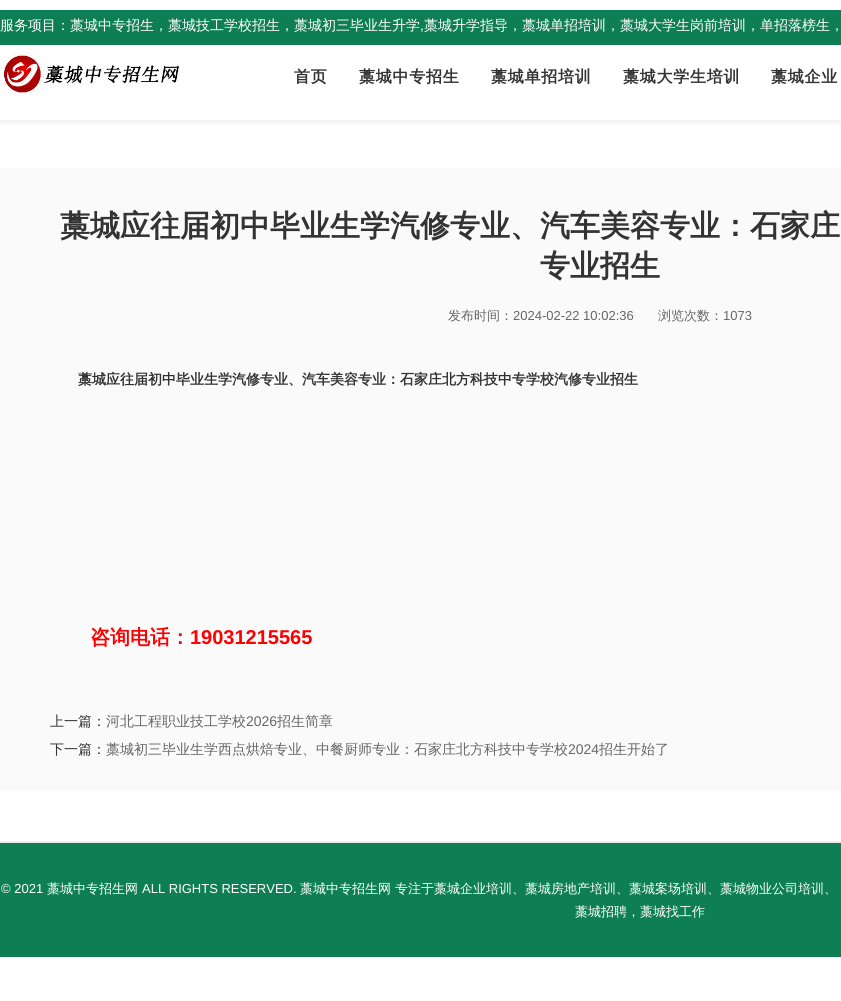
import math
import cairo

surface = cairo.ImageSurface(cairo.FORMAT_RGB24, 841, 1001)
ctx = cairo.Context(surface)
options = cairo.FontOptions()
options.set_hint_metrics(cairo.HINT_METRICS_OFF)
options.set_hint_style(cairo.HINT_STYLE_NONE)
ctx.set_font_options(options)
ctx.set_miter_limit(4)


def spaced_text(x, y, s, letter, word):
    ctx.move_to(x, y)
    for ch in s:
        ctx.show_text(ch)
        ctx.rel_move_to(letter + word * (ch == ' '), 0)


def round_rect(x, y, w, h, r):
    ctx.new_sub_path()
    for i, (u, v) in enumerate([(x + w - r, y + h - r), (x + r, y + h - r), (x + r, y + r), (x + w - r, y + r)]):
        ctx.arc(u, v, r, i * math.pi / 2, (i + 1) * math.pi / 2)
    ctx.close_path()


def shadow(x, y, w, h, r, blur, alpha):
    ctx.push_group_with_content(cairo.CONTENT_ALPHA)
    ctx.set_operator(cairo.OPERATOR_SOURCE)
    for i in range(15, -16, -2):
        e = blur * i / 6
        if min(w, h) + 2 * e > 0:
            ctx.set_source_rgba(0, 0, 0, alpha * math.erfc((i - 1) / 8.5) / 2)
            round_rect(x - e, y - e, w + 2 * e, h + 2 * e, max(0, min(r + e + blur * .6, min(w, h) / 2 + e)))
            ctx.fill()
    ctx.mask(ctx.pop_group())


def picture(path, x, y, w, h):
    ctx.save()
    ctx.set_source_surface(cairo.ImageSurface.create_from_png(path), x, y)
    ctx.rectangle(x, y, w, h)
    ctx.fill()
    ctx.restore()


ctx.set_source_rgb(1, 1, 1)
ctx.paint()
ctx.save()
ctx.rectangle(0, 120, 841, 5)
ctx.clip()
ctx.set_source_rgb(0, 0, 0)
shadow(0, 4, 841, 120, 0, 3, 0.06)
ctx.restore()
ctx.set_source_rgb(0.055, 0.498, 0.329)
ctx.rectangle(0, 10, 841, 35)
ctx.fill()
ctx.select_font_face("WenQuanYi Zen Hei Medium")
ctx.set_font_size(14)
ctx.set_source_rgb(1, 1, 1)
ctx.move_to(0, 30)
ctx.show_text("服务项目：藁城中专招生，藁城技工学校招生，藁城初三毕业生升学")
ctx.select_font_face("Liberation Sans")
ctx.move_to(420, 30)
ctx.show_text(",")
ctx.select_font_face("WenQuanYi Zen Hei Medium")
ctx.move_to(424, 30)
ctx.show_text("藁城升学指导，藁城单招培训，藁城大学生岗前培训，单招落榜生，")
picture("img1.png", 4, 53, 176, 42)
ctx.select_font_face("WenQuanYi Zen Hei", cairo.FONT_SLANT_NORMAL, cairo.FONT_WEIGHT_BOLD)
ctx.set_font_size(16)
ctx.set_source_rgb(0.2, 0.2, 0.2)
spaced_text(294, 82, "首页", 0.75, 0)
spaced_text(359, 82, "藁城中专招生", 0.75, 0)
spaced_text(491, 82, "藁城单招培训", 0.75, 0)
spaced_text(623, 82, "藁城大学生培训", 0.75, 0)
spaced_text(771, 82, "藁城企业", 0.75, 0)
ctx.set_source_rgb(0.98, 0.98, 0.98)
ctx.rectangle(0, 168, 841, 623)
ctx.fill()
ctx.set_font_size(30)
ctx.set_source_rgb(0.2, 0.2, 0.2)
ctx.move_to(60, 236)
ctx.show_text("藁城应往届初中毕业生学汽修专业、汽车美容专业：石家庄")
ctx.move_to(540, 276)
ctx.show_text("专业招生")
ctx.select_font_face("WenQuanYi Zen Hei Medium")
ctx.set_font_size(13)
ctx.set_source_rgb(0.4, 0.4, 0.4)
ctx.move_to(448, 320)
ctx.show_text("发布时间：")
ctx.select_font_face("Liberation Sans")
ctx.move_to(513, 320)
ctx.show_text("2024-02-22 10:02:36")
ctx.select_font_face("WenQuanYi Zen Hei Medium")
ctx.move_to(658, 320)
ctx.show_text("浏览次数：")
ctx.select_font_face("Liberation Sans")
ctx.move_to(723, 320)
ctx.show_text("1073")
ctx.select_font_face("WenQuanYi Zen Hei", cairo.FONT_SLANT_NORMAL, cairo.FONT_WEIGHT_BOLD)
ctx.set_font_size(14)
ctx.set_source_rgb(0.2, 0.2, 0.2)
ctx.move_to(78, 384)
ctx.show_text("藁城应往届初中毕业生学汽修专业、汽车美容专业：石家庄北方科技中专学校汽修专业招生")
ctx.set_font_size(20)
ctx.set_source_rgb(1, 0, 0)
ctx.move_to(90, 644)
ctx.show_text("咨询电话：")
ctx.select_font_face("Liberation Sans", cairo.FONT_SLANT_NORMAL, cairo.FONT_WEIGHT_BOLD)
ctx.move_to(190, 644)
ctx.show_text("19031215565")
ctx.select_font_face("WenQuanYi Zen Hei Medium")
ctx.set_font_size(14)
ctx.set_source_rgb(0.2, 0.2, 0.2)
ctx.move_to(50, 726)
ctx.show_text("上一篇：")
ctx.set_source_rgb(0.4, 0.4, 0.4)
ctx.move_to(106, 726)
ctx.show_text("河北工程职业技工学校")
ctx.select_font_face("Liberation Sans")
ctx.move_to(246, 726)
ctx.show_text("2026")
ctx.select_font_face("WenQuanYi Zen Hei Medium")
ctx.move_to(277, 726)
ctx.show_text("招生简章")
ctx.set_source_rgb(0.2, 0.2, 0.2)
ctx.move_to(50, 754)
ctx.show_text("下一篇：")
ctx.set_source_rgb(0.4, 0.4, 0.4)
ctx.move_to(106, 754)
ctx.show_text("藁城初三毕业生学西点烘焙专业、中餐厨师专业：石家庄北方科技中专学校")
ctx.select_font_face("Liberation Sans")
ctx.move_to(568, 754)
ctx.show_text("2024")
ctx.select_font_face("WenQuanYi Zen Hei Medium")
ctx.move_to(599, 754)
ctx.show_text("招生开始了")
ctx.set_source_rgb(0.055, 0.498, 0.329)
ctx.rectangle(0, 843, 841, 114)
ctx.fill()
ctx.set_source_rgb(0.918, 0.918, 0.918)
ctx.rectangle(0, 841, 841, 2)
ctx.fill()
ctx.select_font_face("Liberation Sans")
ctx.set_font_size(13)
ctx.set_source_rgb(1, 1, 1)
ctx.move_to(1, 893)
ctx.show_text("© 2021")
ctx.select_font_face("WenQuanYi Zen Hei Medium")
ctx.move_to(47, 893)
ctx.show_text("藁城中专招生网")
ctx.select_font_face("Liberation Sans")
ctx.move_to(142, 893)
ctx.show_text("ALL RIGHTS RESERVED.")
ctx.select_font_face("WenQuanYi Zen Hei Medium")
ctx.move_to(300, 893)
ctx.show_text("藁城中专招生网 专注于藁城企业培训、藁城房地产培训、藁城案场培训、藁城物业公司培训、")
ctx.move_to(575, 916)
ctx.show_text("藁城招聘，藁城找工作")
surface.write_to_png("page.png")
